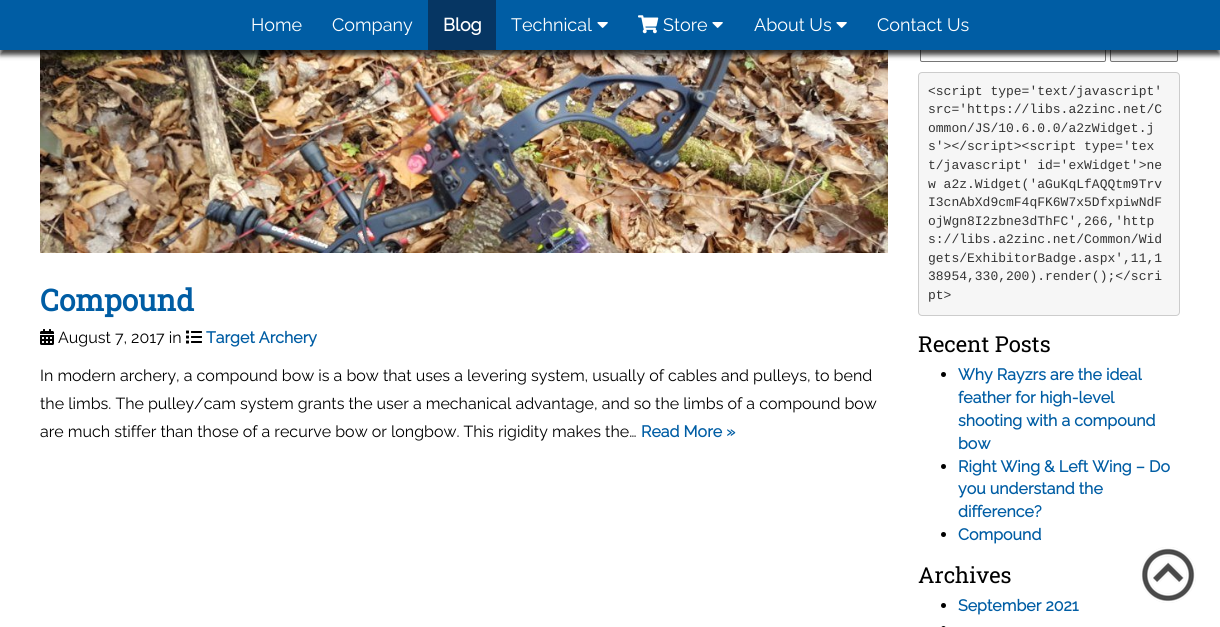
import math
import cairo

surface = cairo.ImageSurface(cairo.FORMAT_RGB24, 1220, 627)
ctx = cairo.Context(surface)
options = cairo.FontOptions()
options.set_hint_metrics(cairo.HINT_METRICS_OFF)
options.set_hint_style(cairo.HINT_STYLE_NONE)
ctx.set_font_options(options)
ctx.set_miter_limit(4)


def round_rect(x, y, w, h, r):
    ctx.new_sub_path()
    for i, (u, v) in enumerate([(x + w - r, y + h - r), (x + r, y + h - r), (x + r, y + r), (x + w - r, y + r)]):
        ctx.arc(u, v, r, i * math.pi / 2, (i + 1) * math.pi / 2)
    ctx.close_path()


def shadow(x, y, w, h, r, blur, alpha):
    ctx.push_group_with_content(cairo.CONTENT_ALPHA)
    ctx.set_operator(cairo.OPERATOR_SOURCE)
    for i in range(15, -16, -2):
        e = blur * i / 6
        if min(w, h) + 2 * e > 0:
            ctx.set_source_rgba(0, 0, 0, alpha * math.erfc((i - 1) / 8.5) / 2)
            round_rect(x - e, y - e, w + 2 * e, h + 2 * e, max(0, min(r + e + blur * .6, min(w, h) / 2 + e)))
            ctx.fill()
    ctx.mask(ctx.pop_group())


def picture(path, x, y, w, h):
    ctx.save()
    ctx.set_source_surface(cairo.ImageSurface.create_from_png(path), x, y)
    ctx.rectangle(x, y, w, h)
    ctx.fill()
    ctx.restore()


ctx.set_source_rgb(1, 1, 1)
ctx.paint()
picture("img3.png", 40, 50, 848, 203)
round_rect(920.5, 33.5, 185, 28, 1.5)
ctx.set_source_rgb(0.463, 0.463, 0.463)
ctx.set_line_width(1)
ctx.stroke()
ctx.set_source_rgb(0.937, 0.937, 0.937)
round_rect(1110.5, 33.5, 67, 28, 1.5)
ctx.fill_preserve()
ctx.set_source_rgb(0.463, 0.463, 0.463)
ctx.stroke()
ctx.set_source_rgb(0, 0, 0)
shadow(0, 5, 1220, 50, 0, 2.5, 0.75)
ctx.set_source_rgb(0, 0.365, 0.643)
ctx.rectangle(0, 0, 1220, 50)
ctx.fill()
ctx.select_font_face("Raleway Thin")
ctx.set_font_size(18)
ctx.set_source_rgb(1, 1, 1)
ctx.move_to(251, 31)
ctx.show_text("Home")
ctx.move_to(332, 31)
ctx.show_text("Company")
ctx.set_source_rgb(0.024, 0.212, 0.388)
ctx.rectangle(428, 0, 68, 50)
ctx.fill()
ctx.select_font_face("Raleway", cairo.FONT_SLANT_NORMAL, cairo.FONT_WEIGHT_BOLD)
ctx.set_source_rgb(1, 1, 1)
ctx.move_to(443, 31)
ctx.show_text("Blog")
ctx.select_font_face("Raleway Thin")
ctx.move_to(511, 31)
ctx.show_text("Technical")
picture("img1.png", 597, 22, 11, 6)
picture("img2.png", 638, 15, 21, 19)
ctx.move_to(663, 31)
ctx.show_text("Store")
picture("img1.png", 712, 22, 11, 6)
ctx.move_to(754, 31)
ctx.show_text("About Us")
picture("img1.png", 836, 22, 11, 6)
ctx.move_to(877, 31)
ctx.show_text("Contact Us")
ctx.select_font_face("Roboto Slab", cairo.FONT_SLANT_NORMAL, cairo.FONT_WEIGHT_BOLD)
ctx.set_font_size(30)
ctx.set_source_rgb(0, 0.365, 0.643)
ctx.move_to(40, 311)
ctx.show_text("Compound")
picture("img4.png", 40, 329, 14, 16)
ctx.select_font_face("Raleway Thin")
ctx.set_font_size(16)
ctx.set_source_rgb(0, 0, 0)
ctx.move_to(58, 343)
ctx.show_text("August 7, 2017 in")
picture("img5.png", 186, 330, 16, 14)
ctx.select_font_face("Raleway", cairo.FONT_SLANT_NORMAL, cairo.FONT_WEIGHT_BOLD)
ctx.set_source_rgb(0, 0.365, 0.643)
ctx.move_to(206, 343)
ctx.show_text("Target Archery")
ctx.select_font_face("Raleway Thin")
ctx.set_source_rgb(0, 0, 0)
ctx.move_to(40, 381)
ctx.show_text("In modern archery, a compound bow is a bow that uses a levering system, usually of cables and pulleys, to bend")
ctx.move_to(40, 409)
ctx.show_text("the limbs. The pulley/cam system grants the user a mechanical advantage, and so the limbs of a compound bow")
ctx.move_to(40, 437)
ctx.show_text("are much stiffer than those of a recurve bow or longbow. This rigidity makes the…")
ctx.select_font_face("Raleway", cairo.FONT_SLANT_NORMAL, cairo.FONT_WEIGHT_BOLD)
ctx.set_source_rgb(0, 0.365, 0.643)
ctx.move_to(641, 437)
ctx.show_text("Read More »")
ctx.set_source_rgb(0.961, 0.961, 0.961)
round_rect(918.5, 72.5, 261, 243, 3.5)
ctx.fill_preserve()
ctx.set_source_rgb(0.8, 0.8, 0.8)
ctx.stroke()
ctx.select_font_face("Liberation Mono")
ctx.set_font_size(13)
ctx.set_source_rgb(0.2, 0.2, 0.2)
ctx.move_to(928, 95)
ctx.show_text("<script type='text/javascript'")
ctx.move_to(928, 113)
ctx.show_text("src='https://libs.a2zinc.net/C")
ctx.move_to(928, 132)
ctx.show_text("ommon/JS/10.6.0.0/a2zWidget.j")
ctx.move_to(928, 150)
ctx.show_text("s'></script><script type='tex")
ctx.move_to(928, 169)
ctx.show_text("t/javascript' id='exWidget'>ne")
ctx.move_to(928, 188)
ctx.show_text("w a2z.Widget('aGuKqLfAQQtm9Trv")
ctx.move_to(928, 206)
ctx.show_text("I3cnAbXd9cmF4qFK6W7x5DfxpiwNdF")
ctx.move_to(928, 225)
ctx.show_text("ojWgn8I2zbne3dThFC',266,'http")
ctx.move_to(928, 243)
ctx.show_text("s://libs.a2zinc.net/Common/Wid")
ctx.move_to(928, 262)
ctx.show_text("gets/ExhibitorBadge.aspx',11,1")
ctx.move_to(928, 280)
ctx.show_text("38954,330,200).render();</scri")
ctx.move_to(928, 299)
ctx.show_text("pt>")
ctx.select_font_face("Roboto Slab")
ctx.set_font_size(22)
ctx.set_source_rgb(0, 0, 0)
ctx.move_to(918, 352)
ctx.show_text("Recent Posts")
ctx.new_path()
ctx.arc(943.5, 374.5, 2.5, 0, 2 * math.pi)
ctx.fill()
ctx.select_font_face("Raleway", cairo.FONT_SLANT_NORMAL, cairo.FONT_WEIGHT_BOLD)
ctx.set_font_size(16)
ctx.set_source_rgb(0, 0.365, 0.643)
ctx.move_to(958, 380)
ctx.show_text("Why Rayzrs are the ideal")
ctx.move_to(958, 403)
ctx.show_text("feather for high-level")
ctx.move_to(958, 426)
ctx.show_text("shooting with a compound")
ctx.move_to(958, 449)
ctx.show_text("bow")
ctx.set_source_rgb(0, 0, 0)
ctx.new_path()
ctx.arc(943.5, 466.5, 2.5, 0, 2 * math.pi)
ctx.fill()
ctx.set_source_rgb(0, 0.365, 0.643)
ctx.move_to(958, 472)
ctx.show_text("Right Wing & Left Wing – Do")
ctx.move_to(958, 494)
ctx.show_text("you understand the")
ctx.move_to(958, 517)
ctx.show_text("difference?")
ctx.set_source_rgb(0, 0, 0)
ctx.new_path()
ctx.arc(943.5, 534.5, 2.5, 0, 2 * math.pi)
ctx.fill()
ctx.set_source_rgb(0, 0.365, 0.643)
ctx.move_to(958, 540)
ctx.show_text("Compound")
ctx.select_font_face("Roboto Slab")
ctx.set_font_size(22)
ctx.set_source_rgb(0, 0, 0)
ctx.move_to(918, 583)
ctx.show_text("Archives")
ctx.new_path()
ctx.arc(943.5, 605.5, 2.5, 0, 2 * math.pi)
ctx.fill()
ctx.select_font_face("Raleway", cairo.FONT_SLANT_NORMAL, cairo.FONT_WEIGHT_BOLD)
ctx.set_font_size(16)
ctx.set_source_rgb(0, 0.365, 0.643)
ctx.move_to(958, 611)
ctx.show_text("September 2021")
ctx.set_source_rgb(0, 0, 0)
round_rect(941, 626, 5, 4, 2.5)
ctx.fill()
picture("img6.png", 1140, 547, 56, 56)
surface.write_to_png("page.png")
